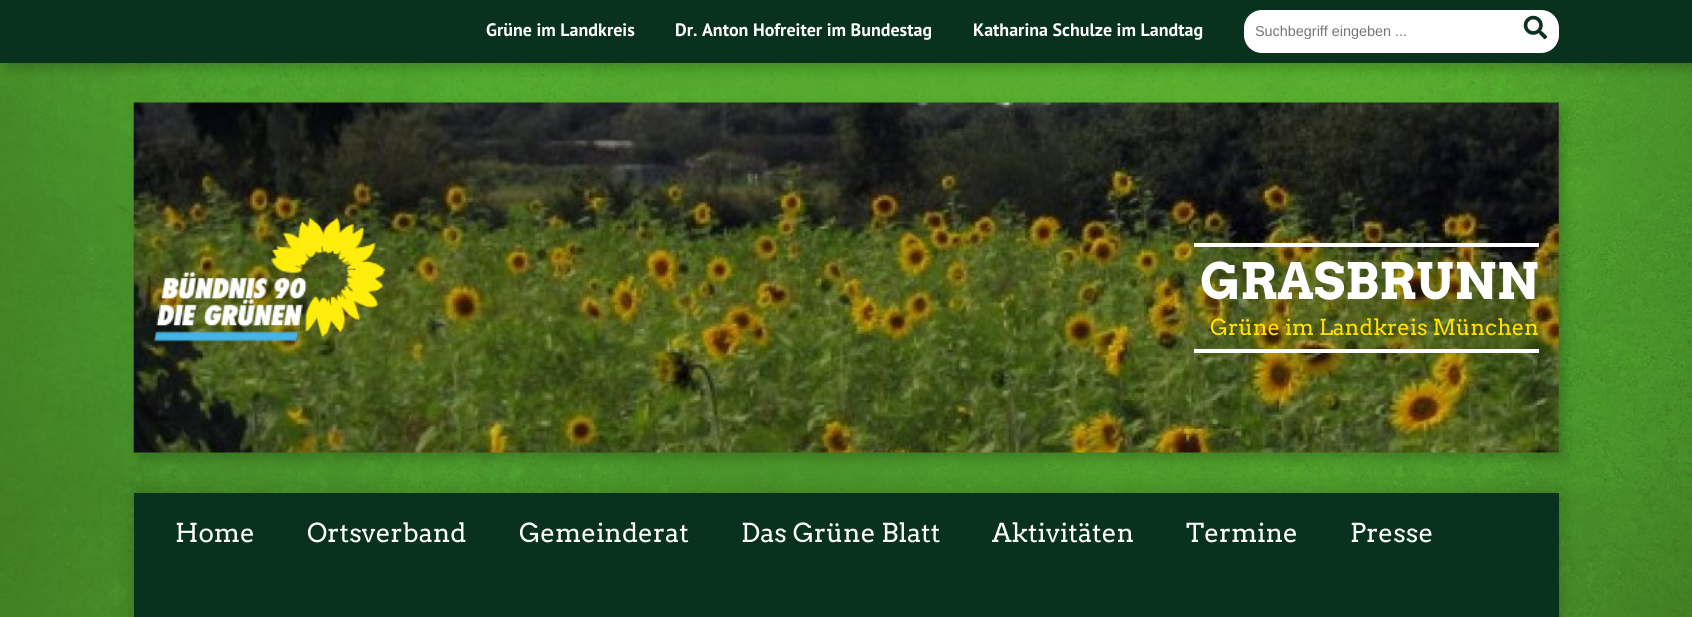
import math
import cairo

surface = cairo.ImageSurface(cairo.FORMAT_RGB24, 1692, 617)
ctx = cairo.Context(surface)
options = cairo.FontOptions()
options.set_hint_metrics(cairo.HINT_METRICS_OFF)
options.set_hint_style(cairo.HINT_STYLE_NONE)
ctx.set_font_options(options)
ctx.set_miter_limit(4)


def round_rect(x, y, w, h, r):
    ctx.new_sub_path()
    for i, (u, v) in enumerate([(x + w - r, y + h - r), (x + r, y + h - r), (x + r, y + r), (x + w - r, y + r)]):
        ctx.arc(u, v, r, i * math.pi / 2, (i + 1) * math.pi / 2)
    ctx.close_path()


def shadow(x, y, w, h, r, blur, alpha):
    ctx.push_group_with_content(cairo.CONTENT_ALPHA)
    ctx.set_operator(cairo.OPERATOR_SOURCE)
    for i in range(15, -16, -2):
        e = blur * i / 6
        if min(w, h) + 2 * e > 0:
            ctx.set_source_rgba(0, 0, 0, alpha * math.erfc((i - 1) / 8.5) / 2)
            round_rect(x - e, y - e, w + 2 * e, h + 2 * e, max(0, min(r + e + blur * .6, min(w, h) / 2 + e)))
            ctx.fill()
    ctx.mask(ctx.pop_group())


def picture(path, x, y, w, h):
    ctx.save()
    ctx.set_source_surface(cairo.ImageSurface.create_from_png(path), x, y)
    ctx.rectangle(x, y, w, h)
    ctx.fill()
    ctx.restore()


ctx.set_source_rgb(1, 1, 1)
ctx.paint()
picture("img1.png", 0, 63, 1692, 554)
ctx.set_source_rgb(0, 0, 0)
shadow(6, 6, 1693, 63, 0, 6, 0.2)
ctx.set_source_rgb(0.039, 0.196, 0.118)
ctx.rectangle(0, 0, 1692, 63)
ctx.fill()
ctx.select_font_face("PT Sans", cairo.FONT_SLANT_NORMAL, cairo.FONT_WEIGHT_BOLD)
ctx.set_font_size(18)
ctx.set_source_rgb(1, 1, 1)
ctx.move_to(486, 36)
ctx.show_text("Grüne im Landkreis")
ctx.move_to(675, 36)
ctx.show_text("Dr. Anton Hofreiter im Bundestag")
ctx.move_to(973, 36)
ctx.show_text("Katharina Schulze im Landtag")
round_rect(1244, 10, 315, 43, 18)
ctx.fill()
ctx.select_font_face("Liberation Sans")
ctx.set_font_size(14.4)
ctx.set_source_rgb(0.459, 0.459, 0.459)
ctx.move_to(1255, 36)
ctx.show_text("Suchbegriff eingeben ...")
picture("img2.png", 1523, 15, 25, 25)
ctx.set_source_rgb(0, 0, 0)
shadow(140, 109, 1425, 350, 0, 6, 0.2)
picture("img3.png", 133, 102, 1426, 351)
picture("img4.png", 153, 217, 232, 125)
ctx.set_source_rgb(1, 1, 1)
ctx.rectangle(1194, 243, 345, 4)
ctx.fill()
ctx.rectangle(1194, 349, 345, 4)
ctx.fill()
ctx.select_font_face("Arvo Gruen")
ctx.set_font_size(50)
ctx.move_to(1200, 299)
ctx.show_text("GRASBRUNN")
ctx.select_font_face("Arvo")
ctx.set_font_size(22)
ctx.set_source_rgb(1, 0.878, 0)
ctx.move_to(1210, 335)
ctx.show_text("Grüne im Landkreis München")
ctx.set_source_rgb(0, 0, 0)
shadow(134, 493, 1425, 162, 0, 12.5, 0.2)
ctx.set_source_rgb(0.039, 0.196, 0.118)
ctx.rectangle(134, 493, 1425, 124)
ctx.fill()
ctx.set_font_size(26)
ctx.set_source_rgb(1, 1, 1)
ctx.move_to(175, 542)
ctx.show_text("Home")
ctx.move_to(307, 542)
ctx.show_text("Ortsverband")
ctx.move_to(519, 542)
ctx.show_text("Gemeinderat")
ctx.move_to(741, 542)
ctx.show_text("Das Grüne Blatt")
ctx.move_to(992, 542)
ctx.show_text("Aktivitäten")
ctx.move_to(1186, 542)
ctx.show_text("Termine")
ctx.move_to(1350, 542)
ctx.show_text("Presse")
surface.write_to_png("page.png")
